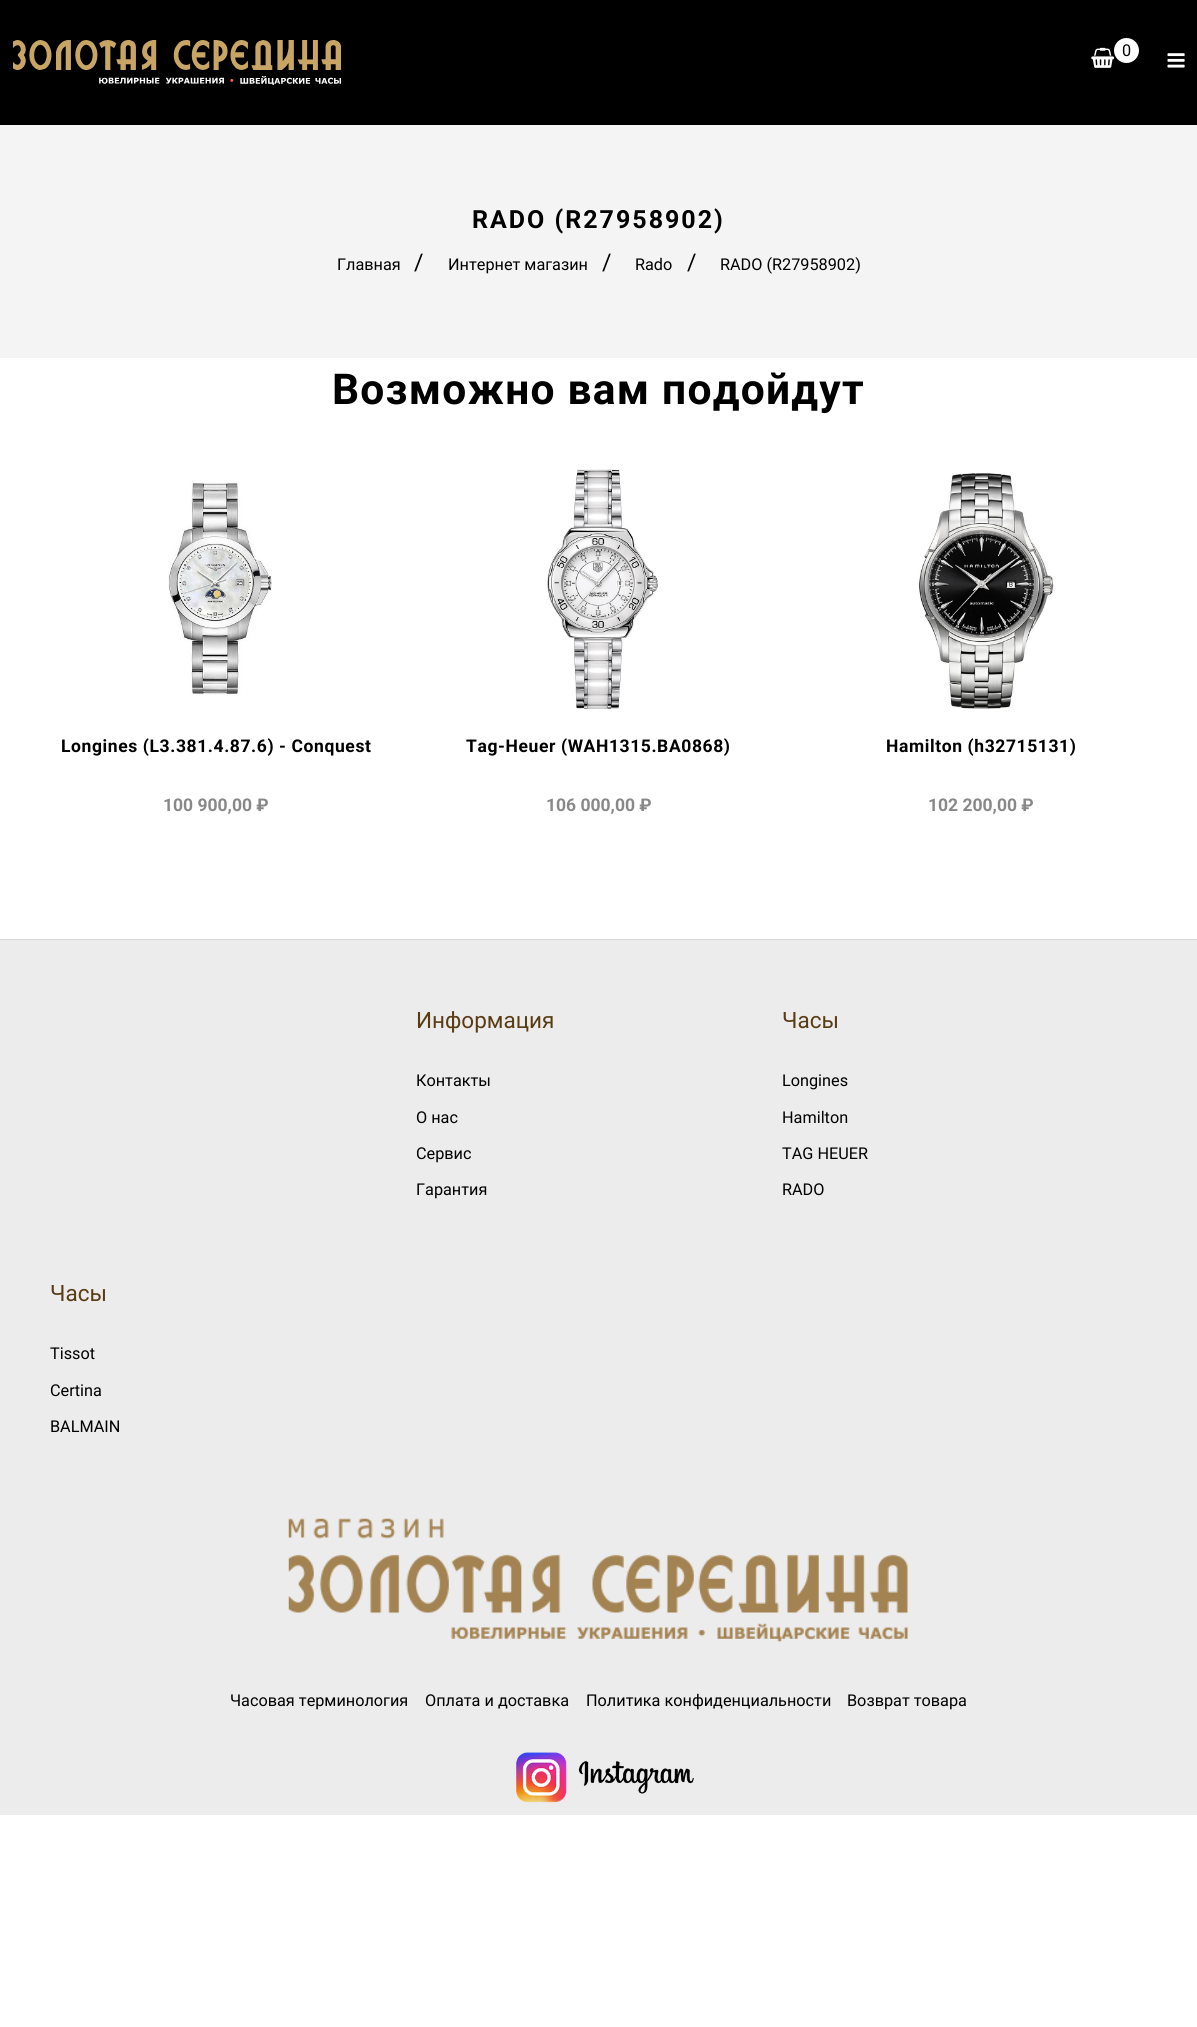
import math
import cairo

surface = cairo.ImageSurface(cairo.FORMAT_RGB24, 1197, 2027)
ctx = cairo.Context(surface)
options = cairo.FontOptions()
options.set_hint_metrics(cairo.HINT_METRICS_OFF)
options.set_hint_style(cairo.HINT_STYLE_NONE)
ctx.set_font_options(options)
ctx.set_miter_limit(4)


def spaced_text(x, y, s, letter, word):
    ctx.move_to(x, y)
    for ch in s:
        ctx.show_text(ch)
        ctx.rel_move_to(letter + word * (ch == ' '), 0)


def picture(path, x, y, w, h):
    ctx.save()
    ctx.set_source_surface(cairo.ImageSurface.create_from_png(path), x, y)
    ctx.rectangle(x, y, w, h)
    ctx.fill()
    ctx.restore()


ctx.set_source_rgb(1, 1, 1)
ctx.paint()
ctx.set_source_rgb(0, 0, 0)
ctx.rectangle(0, 0, 1197, 125)
ctx.fill()
picture("img1.png", 13, 40, 328, 45)
picture("img2.png", 1091, 47, 24, 21)
ctx.set_source_rgb(1, 1, 1)
ctx.arc(1126.5, 50.5, 12.5, 0, 2 * math.pi)
ctx.fill()
ctx.select_font_face("Roboto")
ctx.set_font_size(16.25)
ctx.set_source_rgb(0, 0, 0)
ctx.move_to(1122, 56)
ctx.show_text("0")
picture("img3.png", 1167, 53, 18, 15)
ctx.set_source_rgb(0.957, 0.957, 0.957)
ctx.rectangle(0, 125, 1197, 233)
ctx.fill()
ctx.select_font_face("Roboto", cairo.FONT_SLANT_NORMAL, cairo.FONT_WEIGHT_BOLD)
ctx.set_font_size(25)
ctx.set_source_rgb(0, 0, 0)
spaced_text(472, 228, "RADO (R27958902)", 2, 0)
ctx.select_font_face("Roboto")
ctx.set_font_size(16.25)
ctx.move_to(337, 270)
ctx.show_text("Главная")
ctx.set_font_size(23)
ctx.move_to(414, 270)
ctx.show_text("/")
ctx.set_font_size(16.25)
ctx.move_to(448, 270)
ctx.show_text("Интернет магазин")
ctx.set_font_size(23)
ctx.move_to(602, 270)
ctx.show_text("/")
ctx.set_font_size(16.25)
ctx.move_to(635, 270)
ctx.show_text("Rado")
ctx.set_font_size(23)
ctx.move_to(687, 270)
ctx.show_text("/")
ctx.set_font_size(16.25)
ctx.move_to(720, 270)
ctx.show_text("RADO (R27958902)")
ctx.select_font_face("Roboto", cairo.FONT_SLANT_NORMAL, cairo.FONT_WEIGHT_BOLD)
ctx.set_font_size(42.5)
spaced_text(332, 404, "Возможно вам подойдут", 1.25, 0)
picture("img4.png", 168, 481, 104, 214)
ctx.set_font_size(17.5)
spaced_text(61, 752, "Longines (L3.381.4.87.6) - Conquest", 0.6, 0)
ctx.set_source_rgb(0.533, 0.533, 0.533)
ctx.move_to(163, 811)
ctx.show_text("100 900,00 ₽")
picture("img5.png", 547, 469, 111, 240)
ctx.set_source_rgb(0, 0, 0)
spaced_text(466, 752, "Tag-Heuer (WAH1315.BA0868)", 0.6, 0)
ctx.set_source_rgb(0.533, 0.533, 0.533)
ctx.move_to(546, 811)
ctx.show_text("106 000,00 ₽")
picture("img6.png", 918, 473, 136, 236)
ctx.set_source_rgb(0, 0, 0)
spaced_text(886, 752, "Hamilton (h32715131)", 0.6, 0)
ctx.set_source_rgb(0.533, 0.533, 0.533)
ctx.move_to(928, 811)
ctx.show_text("102 200,00 ₽")
ctx.set_source_rgb(0.922, 0.922, 0.922)
ctx.rectangle(0, 940, 1197, 875)
ctx.fill()
ctx.set_source_rgb(0.843, 0.843, 0.843)
ctx.rectangle(0, 939, 1197, 1)
ctx.fill()
ctx.select_font_face("Roboto")
ctx.set_font_size(22.5)
ctx.set_source_rgb(0.353, 0.235, 0.082)
ctx.move_to(416, 1028)
ctx.show_text("Информация")
ctx.set_font_size(16.25)
ctx.set_source_rgb(0, 0, 0)
ctx.move_to(416, 1086)
ctx.show_text("Контакты")
ctx.move_to(416, 1123)
ctx.show_text("О нас")
ctx.move_to(416, 1159)
ctx.show_text("Сервис")
ctx.move_to(416, 1195)
ctx.show_text("Гарантия")
ctx.set_font_size(22.5)
ctx.set_source_rgb(0.353, 0.235, 0.082)
ctx.move_to(782, 1028)
ctx.show_text("Часы")
ctx.set_font_size(16.25)
ctx.set_source_rgb(0, 0, 0)
ctx.move_to(782, 1086)
ctx.show_text("Longines")
ctx.move_to(782, 1123)
ctx.show_text("Hamilton")
ctx.move_to(782, 1159)
ctx.show_text("TAG HEUER")
ctx.move_to(782, 1195)
ctx.show_text("RADO")
ctx.set_font_size(22.5)
ctx.set_source_rgb(0.353, 0.235, 0.082)
ctx.move_to(50, 1301)
ctx.show_text("Часы")
ctx.set_font_size(16.25)
ctx.set_source_rgb(0, 0, 0)
ctx.move_to(50, 1359)
ctx.show_text("Tissot")
ctx.move_to(50, 1396)
ctx.show_text("Certina")
ctx.move_to(50, 1432)
ctx.show_text("BALMAIN")
picture("img7.png", 288, 1518, 620, 124)
ctx.move_to(230, 1706)
ctx.show_text("Часовая терминология")
ctx.move_to(425, 1706)
ctx.show_text("Оплата и доставка")
ctx.move_to(586, 1706)
ctx.show_text("Политика конфиденциальности")
ctx.move_to(847, 1706)
ctx.show_text("Возврат товара")
picture("img8.png", 516, 1752, 178, 51)
surface.write_to_png("page.png")
